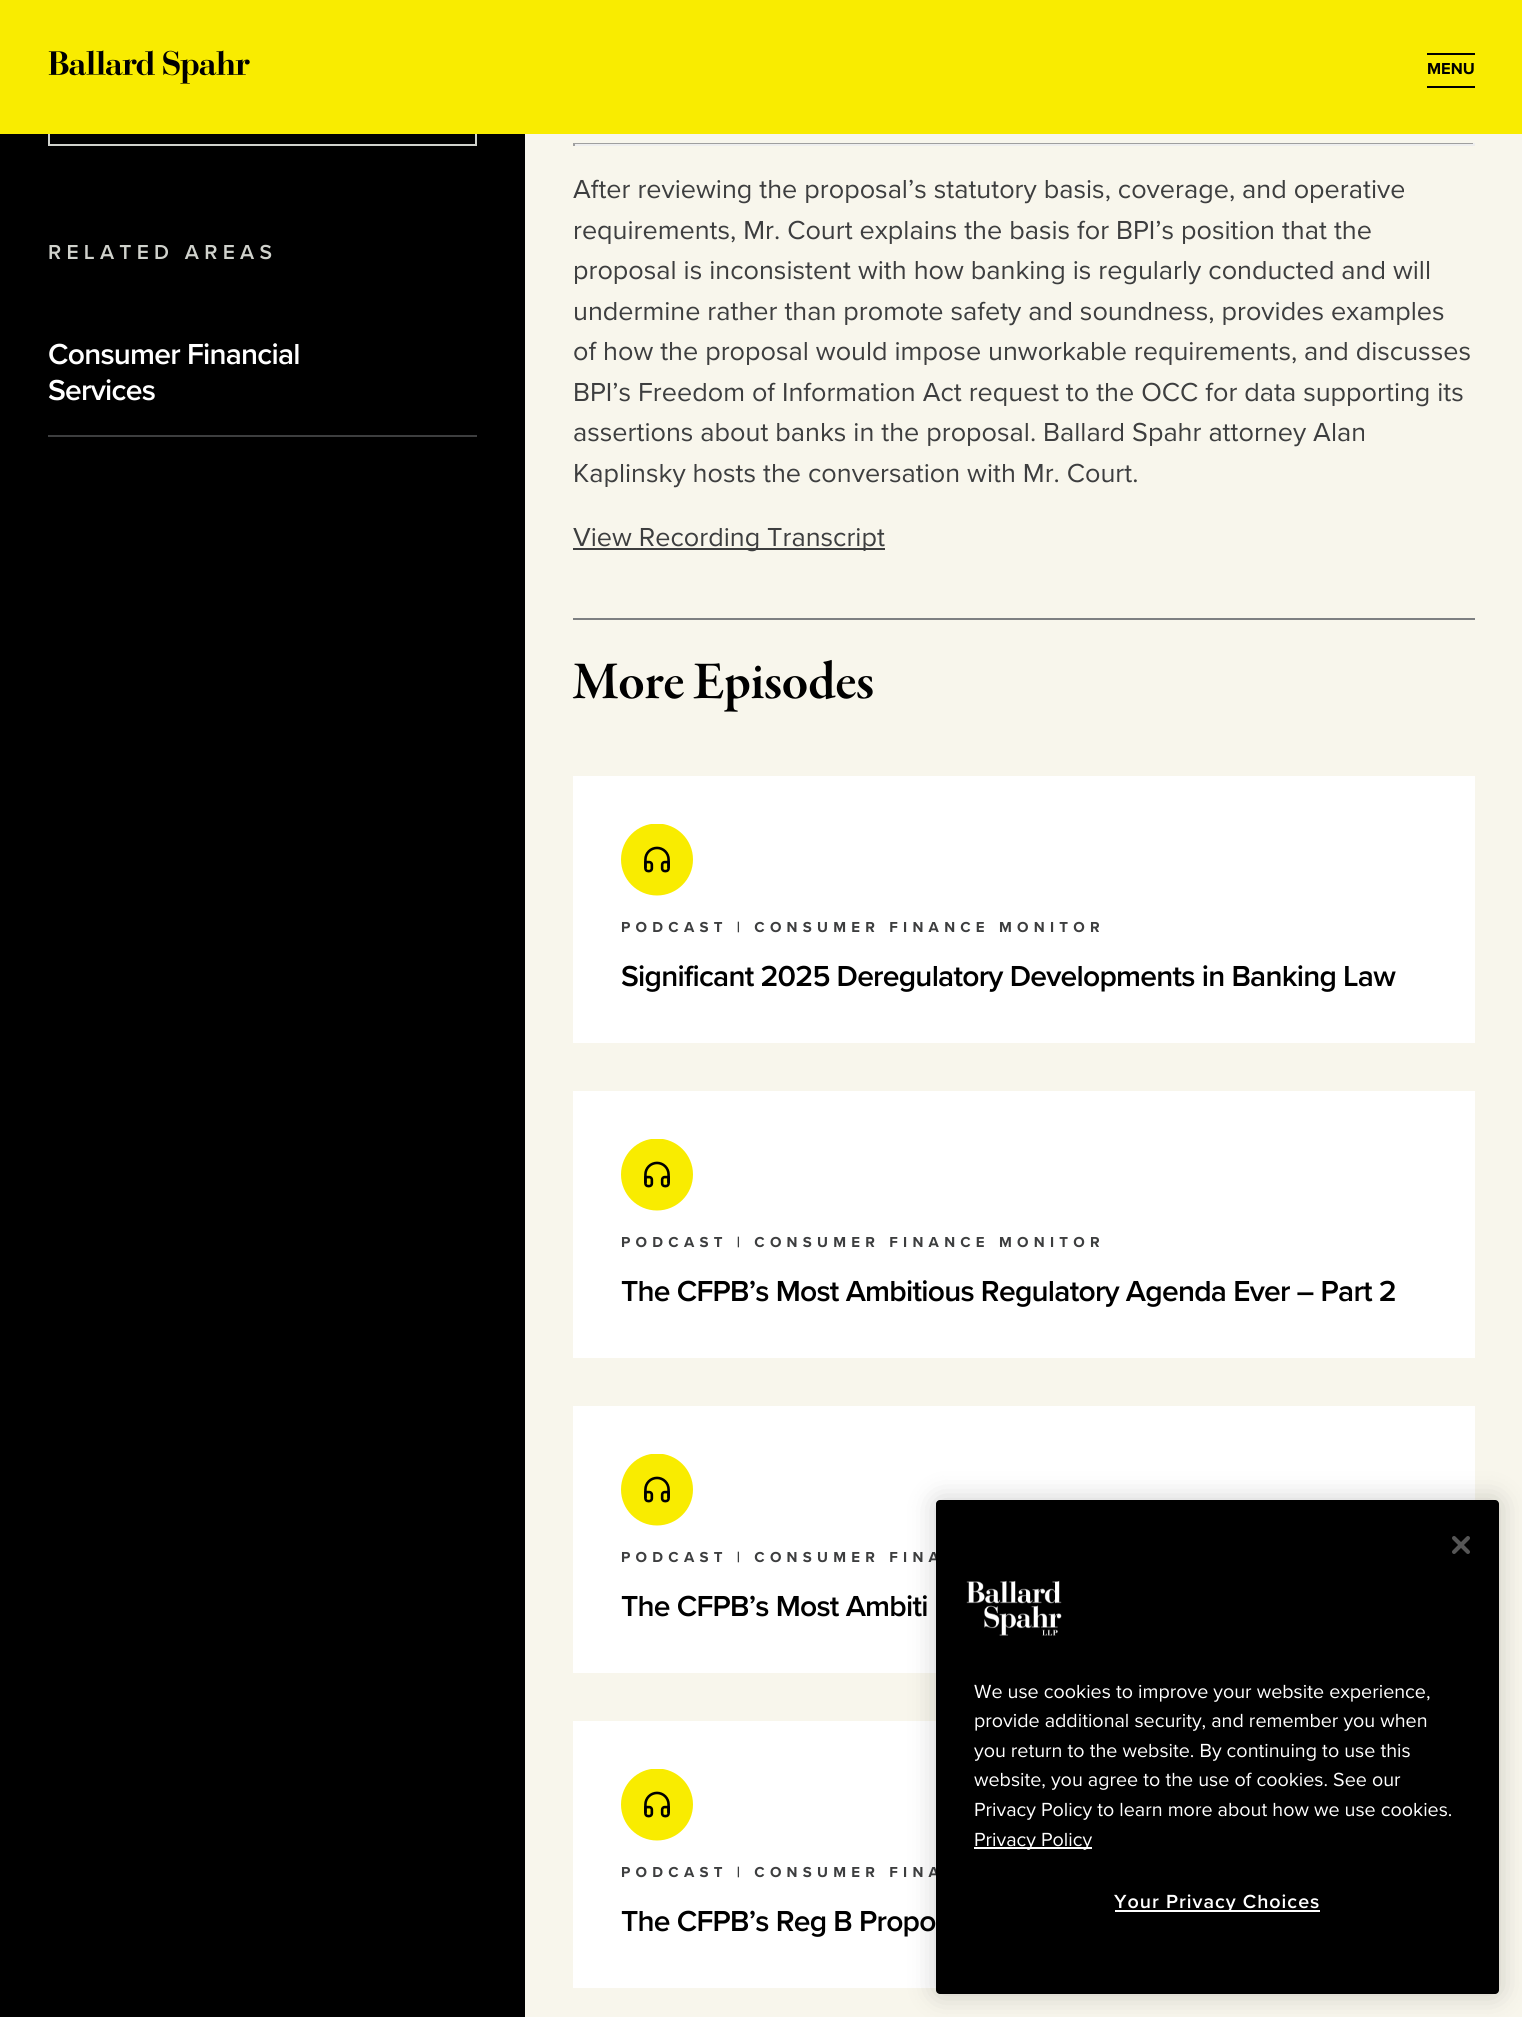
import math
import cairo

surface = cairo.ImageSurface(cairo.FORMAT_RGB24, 1522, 2017)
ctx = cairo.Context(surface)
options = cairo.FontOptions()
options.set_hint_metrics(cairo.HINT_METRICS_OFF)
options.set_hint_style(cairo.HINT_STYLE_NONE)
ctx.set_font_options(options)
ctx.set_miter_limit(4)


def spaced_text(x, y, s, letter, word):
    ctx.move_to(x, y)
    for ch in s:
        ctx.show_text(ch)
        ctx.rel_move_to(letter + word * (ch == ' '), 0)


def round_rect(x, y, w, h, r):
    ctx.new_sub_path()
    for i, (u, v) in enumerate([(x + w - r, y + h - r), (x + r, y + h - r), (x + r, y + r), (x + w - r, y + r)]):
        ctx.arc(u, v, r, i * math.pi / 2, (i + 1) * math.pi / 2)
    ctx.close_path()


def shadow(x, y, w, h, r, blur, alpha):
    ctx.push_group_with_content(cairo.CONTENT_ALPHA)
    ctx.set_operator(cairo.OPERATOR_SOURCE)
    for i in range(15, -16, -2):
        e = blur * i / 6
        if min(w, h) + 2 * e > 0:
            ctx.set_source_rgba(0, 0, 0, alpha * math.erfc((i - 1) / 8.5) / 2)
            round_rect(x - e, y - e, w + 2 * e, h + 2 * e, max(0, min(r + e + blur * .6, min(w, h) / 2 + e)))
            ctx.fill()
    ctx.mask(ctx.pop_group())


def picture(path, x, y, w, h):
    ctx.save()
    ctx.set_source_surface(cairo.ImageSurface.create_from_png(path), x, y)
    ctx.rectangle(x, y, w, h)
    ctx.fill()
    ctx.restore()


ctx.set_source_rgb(0, 0, 0)
ctx.paint()
ctx.rectangle(49, -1, 427, 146)
ctx.set_source_rgb(0.816, 0.824, 0.8)
ctx.stroke()
ctx.set_source_rgb(0.976, 0.925, 0)
ctx.rectangle(0, 0, 1522, 134)
ctx.fill()
picture("img1.png", 48, 50, 202, 34)
ctx.set_source_rgb(0, 0, 0)
ctx.rectangle(1427, 53, 48, 2)
ctx.fill()
ctx.select_font_face("Proxima Nova", cairo.FONT_SLANT_NORMAL, cairo.FONT_WEIGHT_BOLD)
ctx.set_font_size(16.5)
ctx.move_to(1427, 74)
ctx.show_text("MENU")
ctx.rectangle(1427, 86, 48, 2)
ctx.fill()
ctx.select_font_face("Proxima Nova SemiBold")
ctx.set_font_size(21)
ctx.set_source_rgb(0.816, 0.824, 0.8)
spaced_text(48, 259, "RELATED AREAS", 5.25, 0)
ctx.set_source_rgb(0.239, 0.243, 0.247)
ctx.rectangle(48, 435, 429, 2)
ctx.fill()
ctx.set_font_size(30)
ctx.set_source_rgb(1, 1, 1)
spaced_text(48, 364, "Consumer Financial", -0.75, 0)
spaced_text(48, 400, "Services", -0.75, 0)
ctx.set_source_rgb(0.969, 0.961, 0.922)
ctx.rectangle(525, 134, 997, 1883)
ctx.fill()
ctx.set_source_rgb(0.624, 0.624, 0.624)
ctx.rectangle(573, 143, 902, 1)
ctx.fill()
ctx.set_source_rgb(0.933, 0.933, 0.933)
ctx.rectangle(1473, 143, 2, 3)
ctx.fill()
ctx.rectangle(573, 144, 902, 2)
ctx.fill()
ctx.set_source_rgb(0.624, 0.624, 0.624)
ctx.rectangle(573, 143, 2, 3)
ctx.fill()
ctx.select_font_face("Proxima Nova")
ctx.set_font_size(27)
ctx.set_source_rgb(0.239, 0.243, 0.247)
ctx.move_to(573, 198)
ctx.show_text("After reviewing the proposal’s statutory basis, coverage, and operative")
ctx.move_to(573, 239)
ctx.show_text("requirements, Mr. Court explains the basis for BPI’s position that the")
ctx.move_to(573, 279)
ctx.show_text("proposal is inconsistent with how banking is regularly conducted and will")
ctx.move_to(573, 320)
ctx.show_text("undermine rather than promote safety and soundness, provides examples")
ctx.move_to(573, 360)
ctx.show_text("of how the proposal would impose unworkable requirements, and discusses")
ctx.move_to(573, 401)
ctx.show_text("BPI’s Freedom of Information Act request to the OCC for data supporting its")
ctx.move_to(573, 441)
ctx.show_text("assertions about banks in the proposal. Ballard Spahr attorney Alan")
ctx.move_to(573, 482)
ctx.show_text("Kaplinsky hosts the conversation with Mr. Court.")
ctx.rectangle(573, 548, 312, 2)
ctx.fill()
ctx.move_to(573, 546)
ctx.show_text("View Recording Transcript")
ctx.set_source_rgb(0.494, 0.502, 0.51)
ctx.rectangle(573, 618, 902, 2)
ctx.fill()
ctx.select_font_face("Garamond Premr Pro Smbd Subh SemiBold")
ctx.set_font_size(54)
ctx.set_source_rgb(0, 0, 0)
spaced_text(573, 698, "More Episodes", -0.5, 0)
ctx.set_source_rgb(1, 1, 1)
ctx.rectangle(573, 776, 902, 267)
ctx.fill()
picture("img2.png", 621, 824, 72, 72)
ctx.select_font_face("Proxima Nova", cairo.FONT_SLANT_NORMAL, cairo.FONT_WEIGHT_BOLD)
ctx.set_font_size(15)
ctx.set_source_rgb(0.239, 0.243, 0.247)
spaced_text(621, 932, "PODCAST | CONSUMER FINANCE MONITOR", 5.25, 0)
ctx.select_font_face("Proxima Nova SemiBold")
ctx.set_font_size(30)
ctx.set_source_rgb(0, 0, 0)
spaced_text(621, 986, "Significant 2025 Deregulatory Developments in Banking Law", -0.75, 0)
ctx.set_source_rgb(1, 1, 1)
ctx.rectangle(573, 1091, 902, 267)
ctx.fill()
picture("img2.png", 621, 1139, 72, 72)
ctx.select_font_face("Proxima Nova", cairo.FONT_SLANT_NORMAL, cairo.FONT_WEIGHT_BOLD)
ctx.set_font_size(15)
ctx.set_source_rgb(0.239, 0.243, 0.247)
spaced_text(621, 1247, "PODCAST | CONSUMER FINANCE MONITOR", 5.25, 0)
ctx.select_font_face("Proxima Nova SemiBold")
ctx.set_font_size(30)
ctx.set_source_rgb(0, 0, 0)
spaced_text(621, 1301, "The CFPB’s Most Ambitious Regulatory Agenda Ever – Part 2", -0.75, 0)
ctx.set_source_rgb(1, 1, 1)
ctx.rectangle(573, 1406, 902, 267)
ctx.fill()
picture("img2.png", 621, 1454, 72, 72)
ctx.select_font_face("Proxima Nova", cairo.FONT_SLANT_NORMAL, cairo.FONT_WEIGHT_BOLD)
ctx.set_font_size(15)
ctx.set_source_rgb(0.239, 0.243, 0.247)
spaced_text(621, 1562, "PODCAST | CONSUMER FINA", 5.25, 0)
ctx.select_font_face("Proxima Nova SemiBold")
ctx.set_font_size(30)
ctx.set_source_rgb(0, 0, 0)
spaced_text(621, 1616, "The CFPB’s Most Ambiti", -0.75, 0)
ctx.set_source_rgb(1, 1, 1)
ctx.rectangle(573, 1721, 363, 267)
ctx.fill()
picture("img2.png", 621, 1769, 72, 72)
ctx.select_font_face("Proxima Nova", cairo.FONT_SLANT_NORMAL, cairo.FONT_WEIGHT_BOLD)
ctx.set_font_size(15)
ctx.set_source_rgb(0.239, 0.243, 0.247)
spaced_text(621, 1877, "PODCAST | CONSUMER FINA", 5.25, 0)
ctx.select_font_face("Proxima Nova SemiBold")
ctx.set_font_size(30)
ctx.set_source_rgb(0, 0, 0)
spaced_text(621, 1931, "The CFPB’s Reg B Propo", -0.75, 0)
ctx.set_source_rgb(0, 0, 0)
shadow(936, 1500, 563, 494, 4, 13.5, 0.2)
ctx.set_source_rgb(0, 0, 0)
round_rect(936, 1500, 563, 494, 4)
ctx.fill()
picture("img3.png", 1452, 1536, 18, 18)
picture("img4.png", 966, 1580, 96, 56)
ctx.select_font_face("Proxima Nova")
ctx.set_font_size(19.7)
ctx.set_source_rgb(1, 1, 1)
ctx.move_to(974, 1698)
ctx.show_text("We use cookies to improve your website experience,")
ctx.move_to(974, 1727)
ctx.show_text("provide additional security, and remember you when")
ctx.move_to(974, 1757)
ctx.show_text("you return to the website. By continuing to use this")
ctx.move_to(974, 1786)
ctx.show_text("website, you agree to the use of cookies. See our")
ctx.move_to(974, 1816)
ctx.show_text("Privacy Policy to learn more about how we use cookies.")
ctx.rectangle(974, 1847, 118, 2)
ctx.fill()
ctx.move_to(974, 1846)
ctx.show_text("Privacy Policy")
ctx.rectangle(1115, 1910, 205, 2)
ctx.fill()
ctx.select_font_face("Proxima Nova SemiBold")
spaced_text(1114, 1908, "Your Privacy Choices", 1, 0)
surface.write_to_png("page.png")
